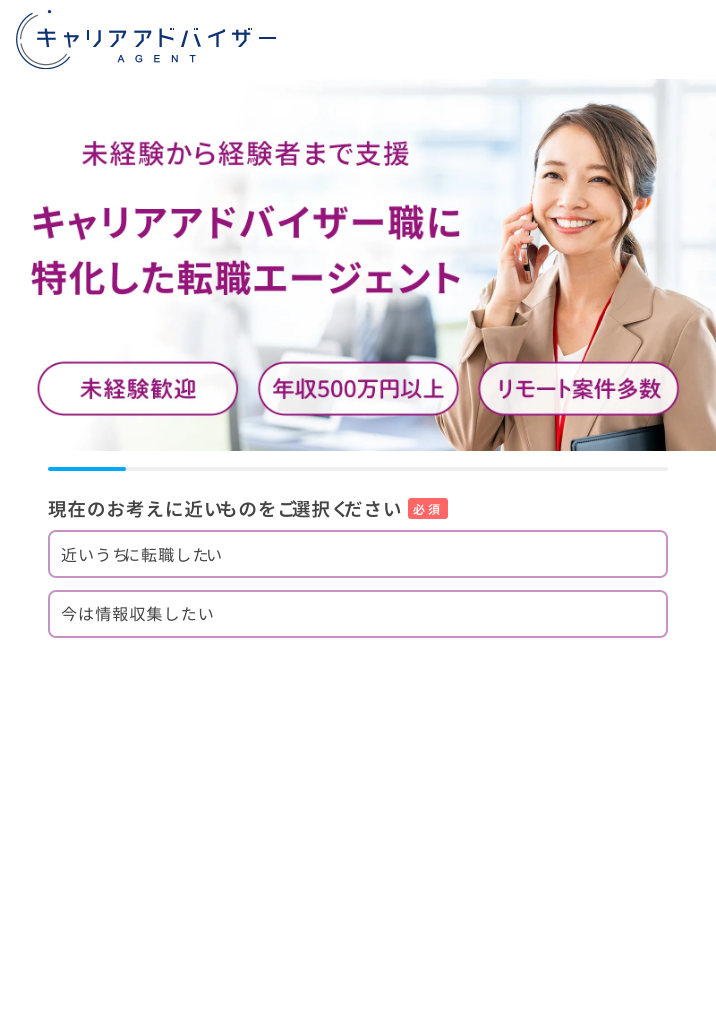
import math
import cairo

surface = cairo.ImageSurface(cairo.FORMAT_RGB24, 716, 1029)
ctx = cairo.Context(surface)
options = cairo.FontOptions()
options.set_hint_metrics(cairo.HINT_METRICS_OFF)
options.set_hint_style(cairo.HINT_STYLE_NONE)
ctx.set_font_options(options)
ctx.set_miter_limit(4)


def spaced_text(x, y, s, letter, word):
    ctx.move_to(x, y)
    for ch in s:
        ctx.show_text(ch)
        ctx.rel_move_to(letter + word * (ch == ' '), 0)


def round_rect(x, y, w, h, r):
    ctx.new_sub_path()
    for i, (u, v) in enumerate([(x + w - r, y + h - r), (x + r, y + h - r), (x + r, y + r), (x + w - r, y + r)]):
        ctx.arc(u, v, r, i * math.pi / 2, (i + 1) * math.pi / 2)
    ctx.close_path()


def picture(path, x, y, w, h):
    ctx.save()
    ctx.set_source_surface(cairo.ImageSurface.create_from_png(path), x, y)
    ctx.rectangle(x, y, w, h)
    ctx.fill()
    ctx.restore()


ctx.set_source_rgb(1, 1, 1)
ctx.paint()
picture("img1.png", 16, 10, 260, 59)
picture("img2.png", 29, 79, 687, 372)
ctx.set_source_rgb(0.933, 0.933, 0.933)
round_rect(48, 467, 620, 4, 2)
ctx.fill()
ctx.set_source_rgb(0, 0.659, 1)
round_rect(48, 467, 78, 4, 2)
ctx.fill()
ctx.select_font_face("Noto Sans JP SemiBold")
ctx.set_font_size(18.4)
ctx.set_source_rgb(0.267, 0.267, 0.267)
spaced_text(48, 516, "現在のお考えに近い", 1.1, 0)
spaced_text(219, 516, "ものをご", 1.1, 0)
spaced_text(292, 516, "選択く", 1.1, 0)
spaced_text(344, 516, "ださい", 1.1, 0)
ctx.set_source_rgb(1, 0.4, 0.4)
round_rect(408, 498, 40, 21, 3)
ctx.fill()
ctx.set_font_size(12)
ctx.set_source_rgb(1, 1, 1)
spaced_text(413, 514, "必須", 3, 0)
round_rect(49, 531, 618, 46, 7)
ctx.set_source_rgb(0.776, 0.576, 0.769)
ctx.stroke()
ctx.select_font_face("Noto Sans JP")
ctx.set_font_size(16)
ctx.set_source_rgb(0.267, 0.267, 0.267)
spaced_text(61, 561, "近いうち", 1.1, 0)
spaced_text(124, 561, "に転職した", 1.1, 0)
spaced_text(206, 561, "い", 1.1, 0)
round_rect(49, 591, 618, 46, 7)
ctx.set_source_rgb(0.776, 0.576, 0.769)
ctx.stroke()
ctx.set_source_rgb(0.267, 0.267, 0.267)
spaced_text(61, 620, "今は情報収集したい", 1.1, 0)
surface.write_to_png("page.png")
